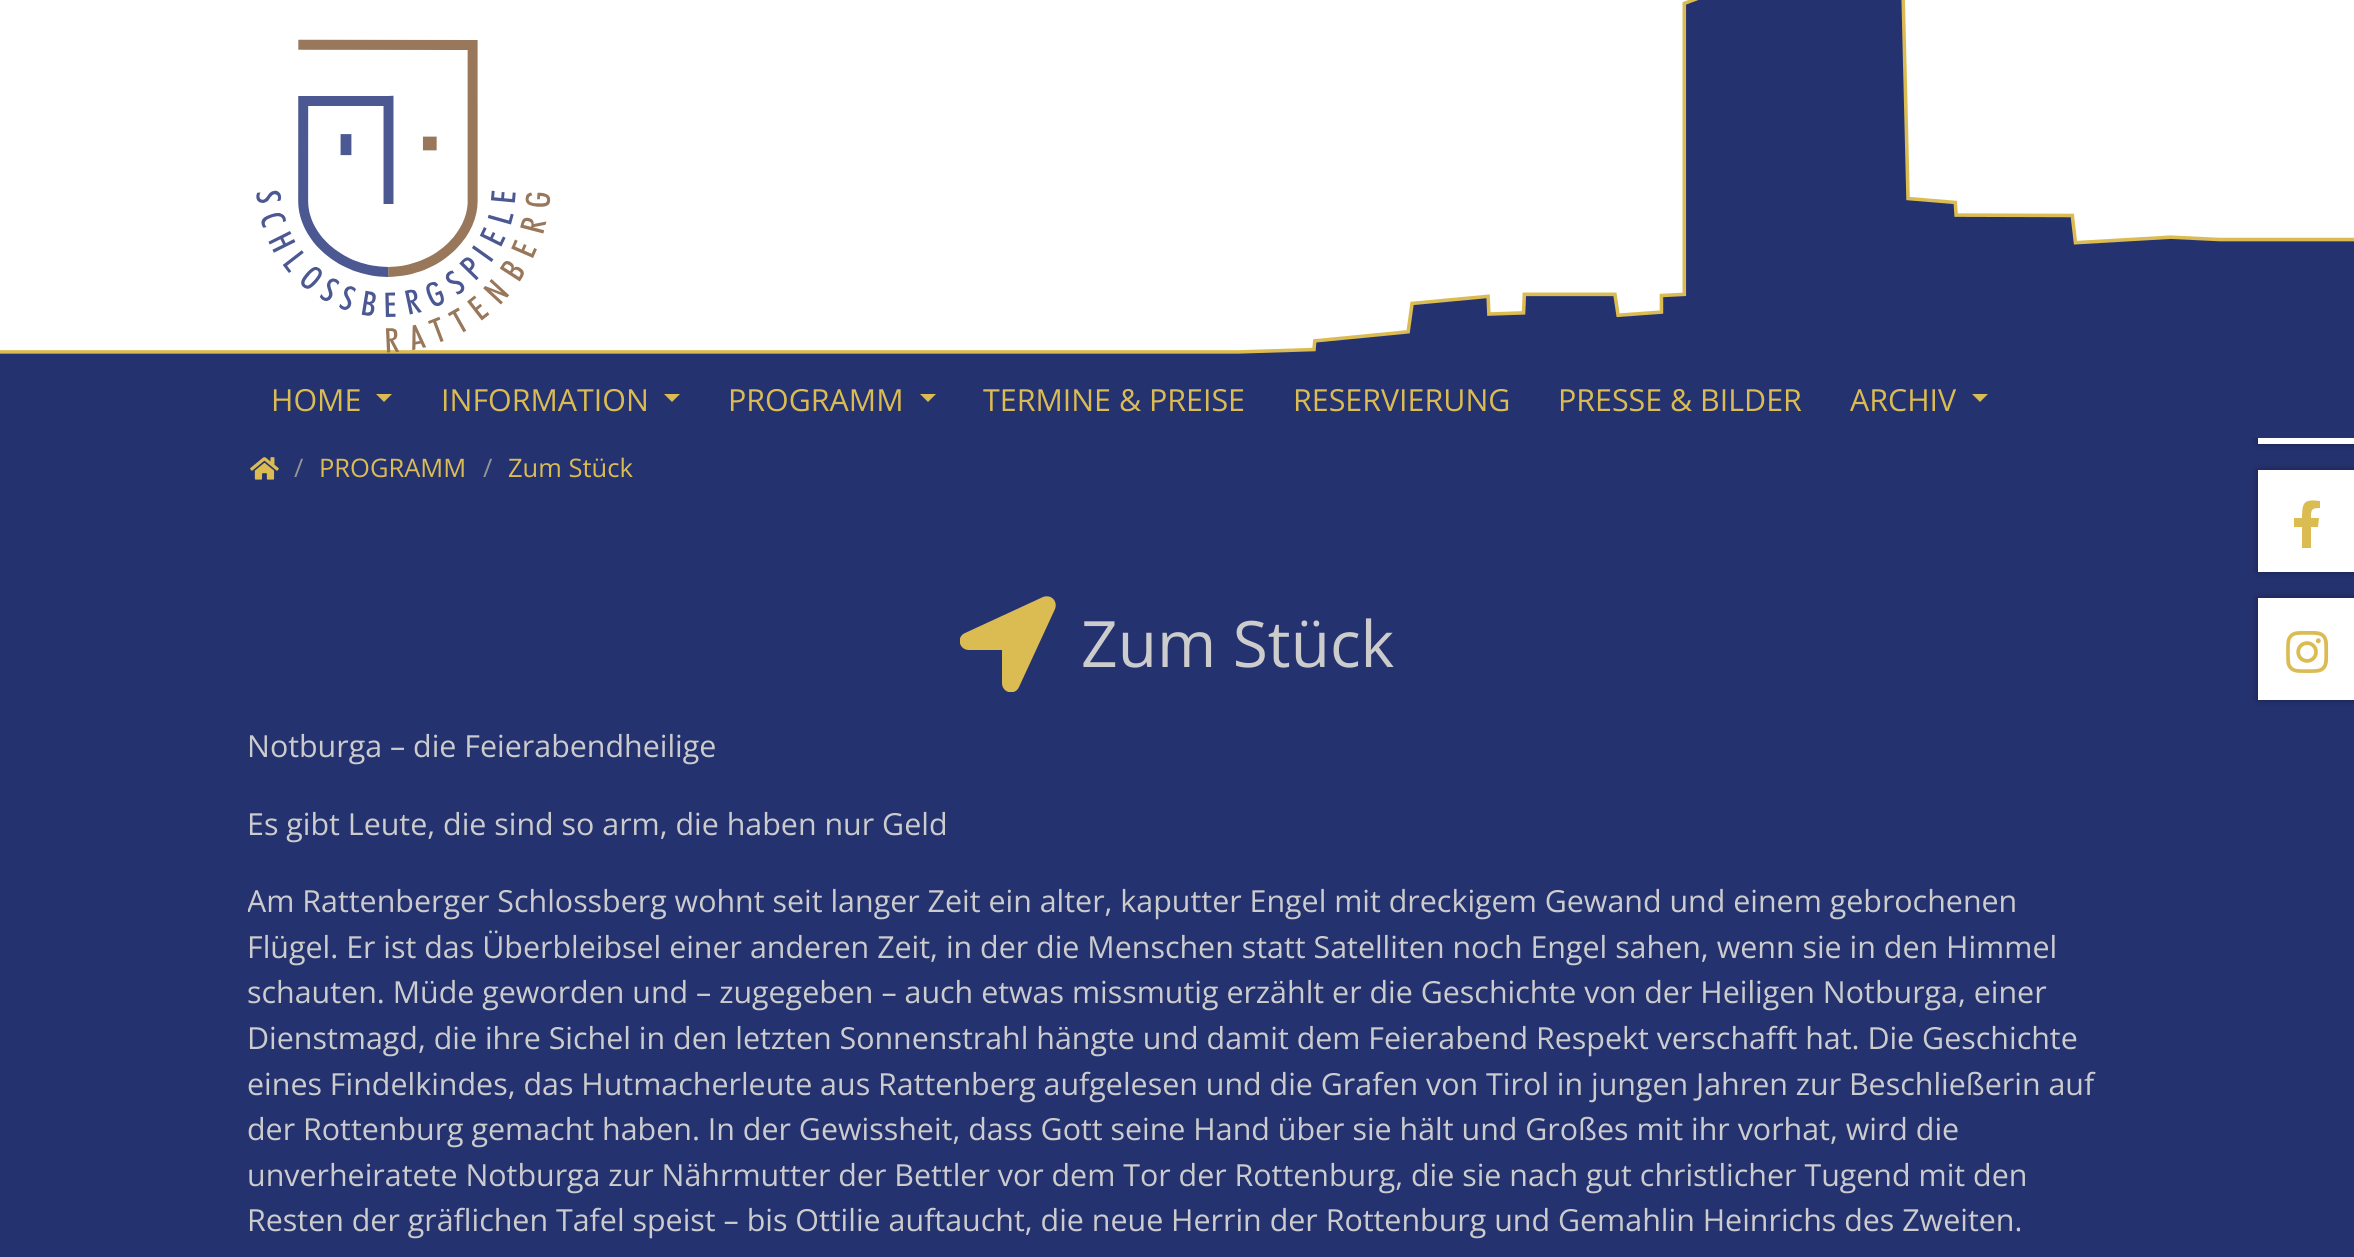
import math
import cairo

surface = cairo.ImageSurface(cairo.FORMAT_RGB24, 2354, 1257)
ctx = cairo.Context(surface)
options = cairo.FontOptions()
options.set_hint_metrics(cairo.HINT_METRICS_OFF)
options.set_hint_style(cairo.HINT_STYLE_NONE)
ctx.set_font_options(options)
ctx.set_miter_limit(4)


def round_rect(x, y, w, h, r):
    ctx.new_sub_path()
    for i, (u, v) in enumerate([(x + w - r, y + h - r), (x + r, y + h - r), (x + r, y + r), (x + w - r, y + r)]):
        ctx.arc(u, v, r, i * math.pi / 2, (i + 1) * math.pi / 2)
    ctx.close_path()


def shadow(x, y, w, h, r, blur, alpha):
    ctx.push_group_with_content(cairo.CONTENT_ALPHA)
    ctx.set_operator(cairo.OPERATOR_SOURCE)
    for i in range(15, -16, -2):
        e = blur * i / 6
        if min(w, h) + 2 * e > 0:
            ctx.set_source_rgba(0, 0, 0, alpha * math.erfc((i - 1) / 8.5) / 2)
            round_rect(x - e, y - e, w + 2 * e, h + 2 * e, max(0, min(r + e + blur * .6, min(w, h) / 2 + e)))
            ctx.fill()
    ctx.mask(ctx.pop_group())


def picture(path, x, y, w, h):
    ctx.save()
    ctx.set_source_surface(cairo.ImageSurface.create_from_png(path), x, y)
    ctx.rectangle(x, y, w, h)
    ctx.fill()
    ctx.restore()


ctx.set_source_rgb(1, 1, 1)
ctx.paint()
ctx.set_source_rgb(0.145, 0.196, 0.439)
ctx.rectangle(0, 438, 2354, 819)
ctx.fill()
ctx.set_source_rgb(0, 0, 0)
shadow(2258, 342, 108, 102, 0, 4, 0.34)
ctx.set_source_rgba(1, 1, 1, 0.96)
ctx.rectangle(2251, 335, 103, 16)
ctx.fill()
picture("img1.png", 0, 0, 2354, 438)
picture("img2.png", 256, 39, 295, 314)
ctx.select_font_face("Open Sans")
ctx.set_font_size(30.4)
ctx.set_source_rgb(0.859, 0.737, 0.322)
ctx.move_to(271, 411)
ctx.show_text("HOME")
ctx.new_path()
ctx.move_to(376, 394)
ctx.line_to(392, 394)
ctx.line_to(384, 402)
ctx.close_path()
ctx.fill()
ctx.move_to(441, 411)
ctx.show_text("INFORMATION")
ctx.new_path()
ctx.move_to(664, 394)
ctx.line_to(680, 394)
ctx.line_to(672, 402)
ctx.close_path()
ctx.fill()
ctx.move_to(728, 411)
ctx.show_text("PROGRAMM")
ctx.new_path()
ctx.move_to(920, 394)
ctx.line_to(936, 394)
ctx.line_to(928, 402)
ctx.close_path()
ctx.fill()
ctx.move_to(983, 411)
ctx.show_text("TERMINE & PREISE")
ctx.move_to(1293, 411)
ctx.show_text("RESERVIERUNG")
ctx.move_to(1558, 411)
ctx.show_text("PRESSE & BILDER")
ctx.move_to(1850, 411)
ctx.show_text("ARCHIV")
ctx.new_path()
ctx.move_to(1972, 394)
ctx.line_to(1988, 394)
ctx.line_to(1980, 402)
ctx.close_path()
ctx.fill()
picture("img3.png", 250, 457, 29, 23)
ctx.set_font_size(25.5)
ctx.set_source_rgb(0.58, 0.58, 0.58)
ctx.move_to(294, 477)
ctx.show_text("/")
ctx.set_source_rgb(0.859, 0.737, 0.322)
ctx.move_to(319, 477)
ctx.show_text("PROGRAMM")
ctx.set_source_rgb(0.58, 0.58, 0.58)
ctx.move_to(483, 477)
ctx.show_text("/")
ctx.set_source_rgb(0.859, 0.737, 0.322)
ctx.move_to(508, 477)
ctx.show_text("Zum Stück")
ctx.set_source_rgb(1, 1, 1)
ctx.rectangle(2258, 438, 96, 6)
ctx.fill()
ctx.set_source_rgb(0, 0, 0)
shadow(2258, 470, 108, 102, 0, 4, 0.34)
ctx.set_source_rgb(1, 1, 1)
ctx.rectangle(2258, 470, 96, 102)
ctx.fill()
ctx.set_source_rgb(0.859, 0.737, 0.322)
ctx.new_path()
ctx.move_to(2318, 527)
ctx.line_to(2311, 527)
ctx.line_to(2311, 548)
ctx.line_to(2302, 548)
ctx.line_to(2302, 527)
ctx.line_to(2294, 527)
ctx.line_to(2294, 518)
ctx.line_to(2302, 518)
ctx.curve_to(2302, 502, 2304, 499, 2320, 501)
ctx.line_to(2320, 508)
ctx.curve_to(2311, 508, 2311, 510, 2311, 518)
ctx.line_to(2319, 518)
ctx.close_path()
ctx.fill()
ctx.set_source_rgb(0, 0, 0)
shadow(2258, 598, 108, 102, 0, 4, 0.34)
ctx.set_source_rgb(1, 1, 1)
ctx.rectangle(2258, 598, 96, 102)
ctx.fill()
picture("img4.png", 2286, 631, 43, 42)
ctx.save()
ctx.rectangle(960, 596, 96, 96)
ctx.clip()
ctx.set_source_rgb(0.859, 0.737, 0.322)
ctx.new_path()
ctx.move_to(1043, 597)
ctx.line_to(965, 633)
ctx.curve_to(956, 637, 959, 650, 969, 650)
ctx.line_to(1002, 650)
ctx.line_to(1002, 683)
ctx.curve_to(1002, 693, 1015, 696, 1019, 687)
ctx.line_to(1055, 609)
ctx.curve_to(1058, 601, 1051, 594, 1043, 597)
ctx.close_path()
ctx.fill()
ctx.restore()
ctx.set_font_size(64)
ctx.set_source_rgb(0.8, 0.8, 0.8)
ctx.move_to(1081, 667)
ctx.show_text("Zum Stück")
ctx.set_font_size(30.4)
ctx.move_to(247, 757)
ctx.show_text("Notburga – die Feierabendheilige")
ctx.move_to(247, 835)
ctx.show_text("Es gibt Leute, die sind so arm, die haben nur Geld")
ctx.save()
ctx.rectangle(248, 596, 1860, 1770)
ctx.clip()
ctx.move_to(247, 912)
ctx.show_text("Am Rattenberger Schlossberg wohnt seit langer Zeit ein alter, kaputter Engel mit dreckigem Gewand und einem gebrochenen")
ctx.restore()
ctx.move_to(247, 958)
ctx.show_text("Flügel. Er ist das Überbleibsel einer anderen Zeit, in der die Menschen statt Satelliten noch Engel sahen, wenn sie in den Himmel")
ctx.move_to(247, 1003)
ctx.show_text("schauten. Müde geworden und – zugegeben – auch etwas missmutig erzählt er die Geschichte von der Heiligen Notburga, einer")
ctx.move_to(247, 1049)
ctx.show_text("Dienstmagd, die ihre Sichel in den letzten Sonnenstrahl hängte und damit dem Feierabend Respekt verschafft hat. Die Geschichte")
ctx.move_to(247, 1095)
ctx.show_text("eines Findelkindes, das Hutmacherleute aus Rattenberg aufgelesen und die Grafen von Tirol in jungen Jahren zur Beschließerin auf")
ctx.move_to(247, 1140)
ctx.show_text("der Rottenburg gemacht haben. In der Gewissheit, dass Gott seine Hand über sie hält und Großes mit ihr vorhat, wird die")
ctx.move_to(247, 1186)
ctx.show_text("unverheiratete Notburga zur Nährmutter der Bettler vor dem Tor der Rottenburg, die sie nach gut christlicher Tugend mit den")
ctx.move_to(247, 1231)
ctx.show_text("Resten der gräflichen Tafel speist – bis Ottilie auftaucht, die neue Herrin der Rottenburg und Gemahlin Heinrichs des Zweiten.")
surface.write_to_png("page.png")
